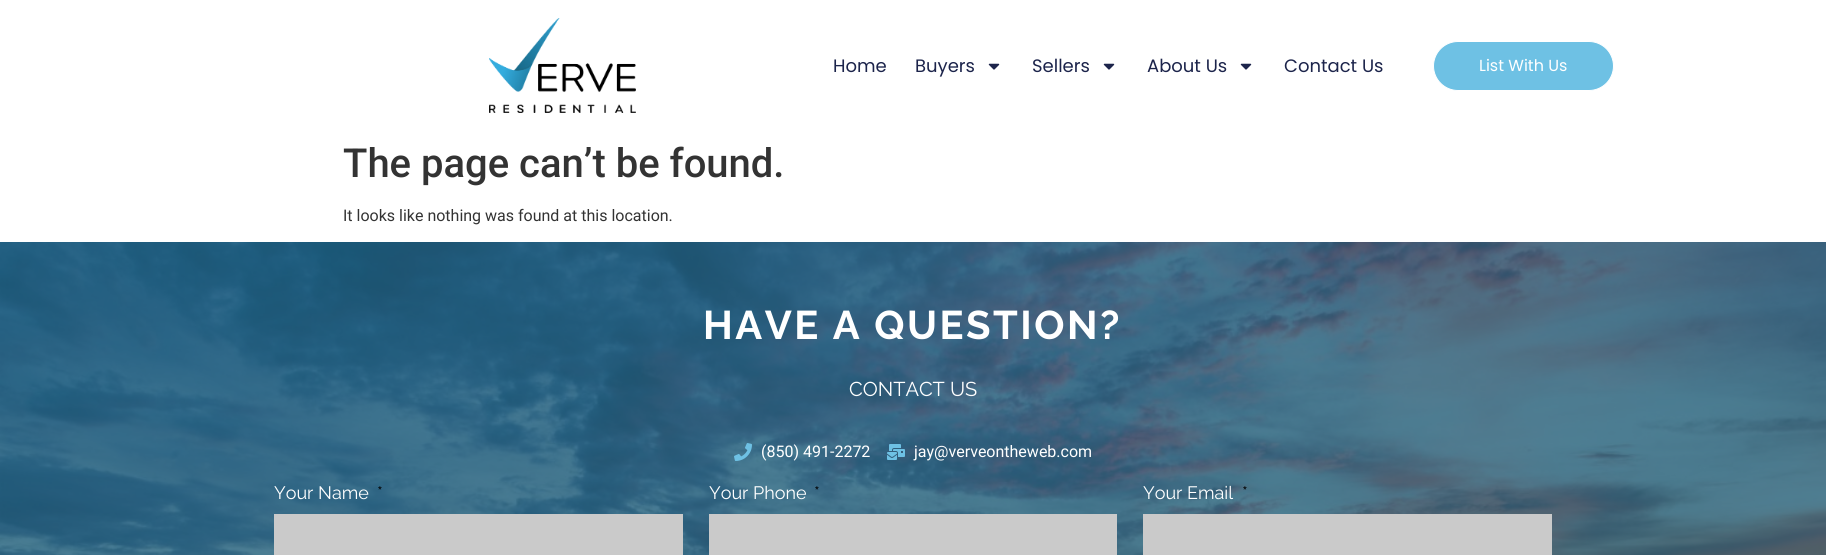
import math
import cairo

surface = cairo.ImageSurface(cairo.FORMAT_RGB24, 1826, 555)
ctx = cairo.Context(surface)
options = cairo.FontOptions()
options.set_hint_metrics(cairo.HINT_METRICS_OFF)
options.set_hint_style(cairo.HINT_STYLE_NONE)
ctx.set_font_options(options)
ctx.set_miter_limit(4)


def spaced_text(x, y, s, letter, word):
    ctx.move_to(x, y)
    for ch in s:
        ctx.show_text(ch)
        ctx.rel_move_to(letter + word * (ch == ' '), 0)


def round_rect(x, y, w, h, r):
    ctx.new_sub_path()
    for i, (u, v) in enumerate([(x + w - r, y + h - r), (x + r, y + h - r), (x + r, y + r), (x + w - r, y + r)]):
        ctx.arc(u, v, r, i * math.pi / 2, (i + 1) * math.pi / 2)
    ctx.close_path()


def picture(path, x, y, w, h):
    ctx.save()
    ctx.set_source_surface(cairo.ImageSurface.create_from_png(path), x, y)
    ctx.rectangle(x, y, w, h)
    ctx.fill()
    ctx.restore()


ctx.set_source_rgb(1, 1, 1)
ctx.paint()
picture("img1.png", 489, 18, 147, 95)
ctx.select_font_face("Poppins")
ctx.set_font_size(18)
ctx.set_source_rgb(0.11, 0.141, 0.294)
ctx.move_to(833, 72)
ctx.show_text("Home")
ctx.move_to(915, 72)
ctx.show_text("Buyers")
picture("img2.png", 988, 63, 12, 7)
ctx.move_to(1032, 72)
ctx.show_text("Sellers")
picture("img2.png", 1103, 63, 12, 7)
ctx.move_to(1147, 72)
ctx.show_text("About Us")
picture("img2.png", 1240, 63, 12, 7)
ctx.move_to(1284, 72)
ctx.show_text("Contact Us")
ctx.set_source_rgb(0.431, 0.757, 0.894)
round_rect(1433.5, 41.5, 180, 49, 24.5)
ctx.fill_preserve()
ctx.set_source_rgb(1, 1, 1)
ctx.set_line_width(1)
ctx.stroke()
ctx.set_font_size(16)
ctx.move_to(1479, 71)
ctx.show_text("List With Us")
ctx.select_font_face("Roboto Medium")
ctx.set_font_size(40)
ctx.set_source_rgb(0.2, 0.2, 0.2)
ctx.move_to(343, 177)
ctx.show_text("The page can’t be found.")
ctx.select_font_face("Roboto")
ctx.set_font_size(16)
ctx.move_to(343, 221)
ctx.show_text("It looks like nothing was found at this location.")
picture("img3.png", 0, 242, 1826, 313)
ctx.select_font_face("Raleway", cairo.FONT_SLANT_NORMAL, cairo.FONT_WEIGHT_BOLD)
ctx.set_font_size(40)
ctx.set_source_rgb(1, 1, 1)
spaced_text(703, 339, "HAVE A QUESTION?", 2.5, 0)
ctx.select_font_face("Raleway")
ctx.set_font_size(20)
ctx.move_to(849, 396)
ctx.show_text("CONTACT US")
picture("img4.png", 734, 443, 18, 18)
ctx.select_font_face("Roboto")
ctx.set_font_size(16)
ctx.move_to(761, 457)
ctx.show_text("(850) 491-2272")
picture("img5.png", 887, 444, 18, 16)
ctx.move_to(914, 457)
ctx.show_text("jay@verveontheweb.com")
ctx.select_font_face("Raleway")
ctx.set_font_size(18)
ctx.move_to(274, 499)
ctx.show_text("Your Name")
ctx.set_source_rgb(0, 0, 0)
ctx.move_to(377, 499)
ctx.show_text("*")
ctx.set_source_rgb(0.792, 0.792, 0.792)
ctx.rectangle(274, 514, 409, 41)
ctx.fill()
ctx.set_source_rgb(1, 1, 1)
ctx.move_to(709, 499)
ctx.show_text("Your Phone")
ctx.set_source_rgb(0, 0, 0)
ctx.move_to(814, 499)
ctx.show_text("*")
ctx.set_source_rgb(0.792, 0.792, 0.792)
ctx.rectangle(709, 514, 408, 41)
ctx.fill()
ctx.set_source_rgb(1, 1, 1)
ctx.move_to(1143, 499)
ctx.show_text("Your Email")
ctx.set_source_rgb(0, 0, 0)
ctx.move_to(1242, 499)
ctx.show_text("*")
ctx.set_source_rgb(0.792, 0.792, 0.792)
ctx.rectangle(1143, 514, 409, 41)
ctx.fill()
surface.write_to_png("page.png")
